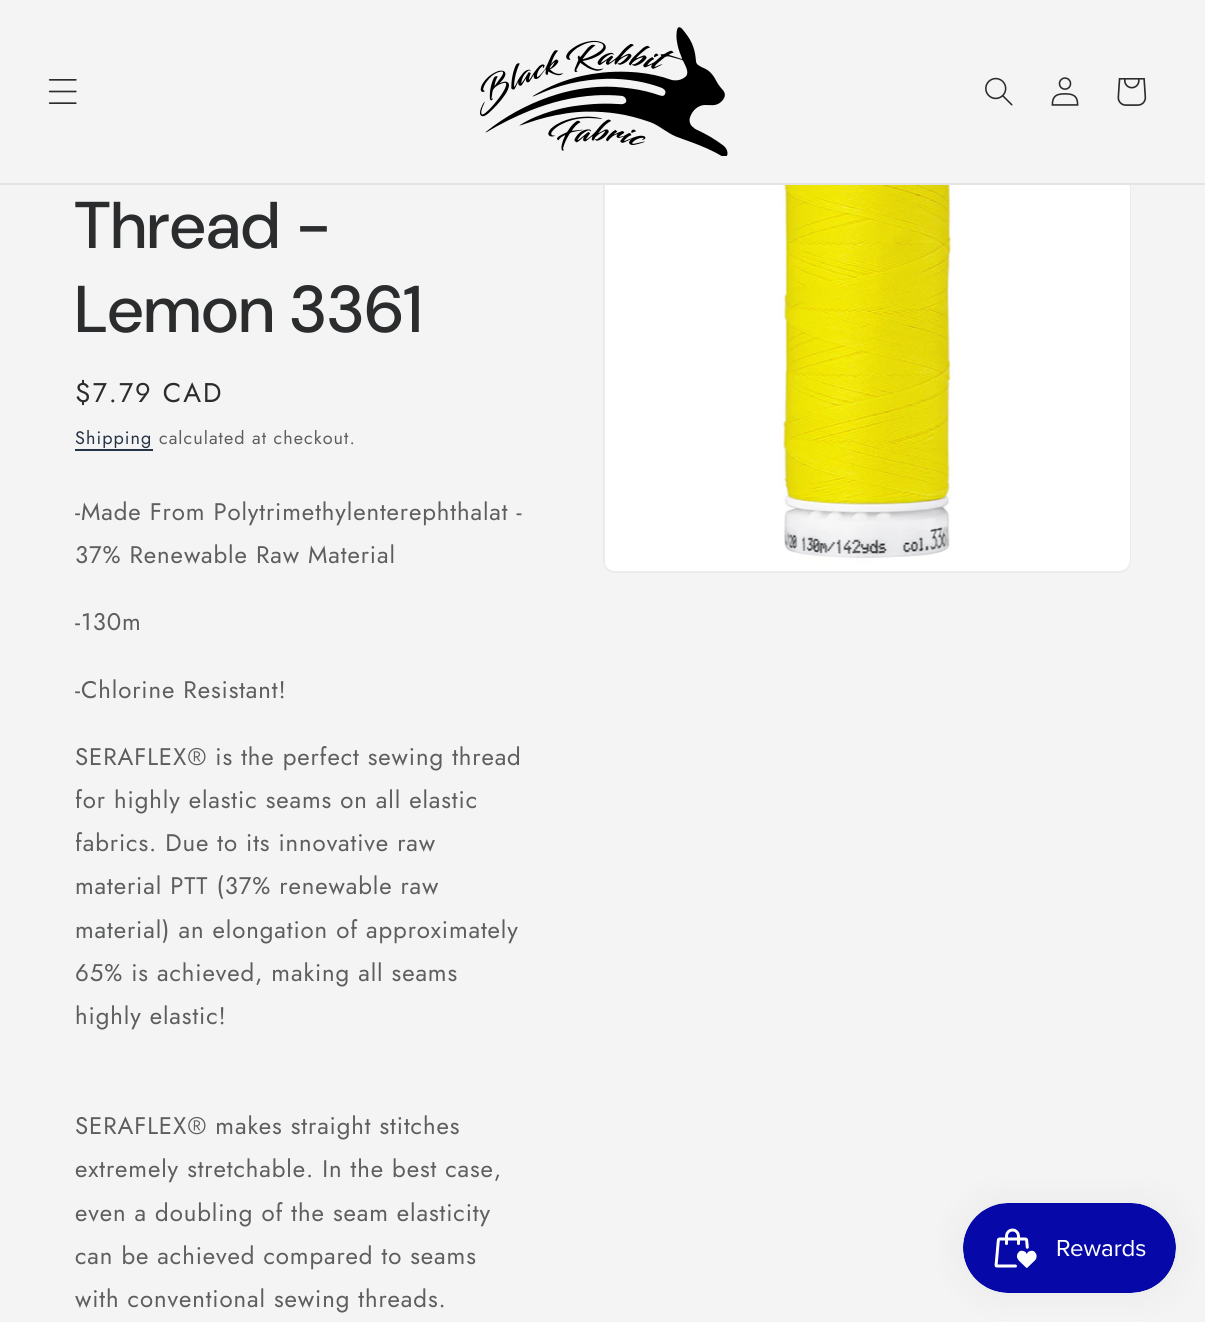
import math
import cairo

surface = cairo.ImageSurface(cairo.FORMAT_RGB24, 1205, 1322)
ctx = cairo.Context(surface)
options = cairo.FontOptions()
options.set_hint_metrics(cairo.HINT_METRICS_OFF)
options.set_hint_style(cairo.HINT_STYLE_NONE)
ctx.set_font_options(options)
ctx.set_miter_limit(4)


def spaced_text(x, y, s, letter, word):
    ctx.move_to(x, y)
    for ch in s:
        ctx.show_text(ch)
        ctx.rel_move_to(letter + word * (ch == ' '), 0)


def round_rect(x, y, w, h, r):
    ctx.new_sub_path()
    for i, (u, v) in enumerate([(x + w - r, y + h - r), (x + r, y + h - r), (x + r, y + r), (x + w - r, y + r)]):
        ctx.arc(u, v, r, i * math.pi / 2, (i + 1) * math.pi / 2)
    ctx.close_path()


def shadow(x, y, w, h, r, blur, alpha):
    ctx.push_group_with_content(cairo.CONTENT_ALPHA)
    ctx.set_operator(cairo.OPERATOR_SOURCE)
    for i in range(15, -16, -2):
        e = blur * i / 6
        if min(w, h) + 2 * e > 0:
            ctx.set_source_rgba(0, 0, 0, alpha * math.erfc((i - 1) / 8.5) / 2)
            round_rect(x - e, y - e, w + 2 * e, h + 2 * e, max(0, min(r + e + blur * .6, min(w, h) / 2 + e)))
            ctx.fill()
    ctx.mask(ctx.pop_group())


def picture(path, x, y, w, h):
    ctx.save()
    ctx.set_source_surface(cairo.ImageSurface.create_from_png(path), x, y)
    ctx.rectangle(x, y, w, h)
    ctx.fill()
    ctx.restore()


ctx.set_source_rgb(0.957, 0.957, 0.957)
ctx.paint()
round_rect(604, 46, 526, 526, 11)
ctx.set_source_rgb(0.918, 0.918, 0.918)
ctx.stroke()
ctx.set_source_rgb(0.957, 0.957, 0.957)
ctx.rectangle(603, 45, 528, 138)
ctx.fill()
ctx.set_source_rgb(0.894, 0.894, 0.894)
ctx.rectangle(0, 183, 1205, 2)
ctx.fill()
picture("img1.png", 48, 79, 29, 25)
picture("img2.png", 480, 27, 248, 129)
picture("img3.png", 985, 77, 28, 29)
picture("img4.png", 1051, 77, 28, 29)
picture("img5.png", 1117, 78, 30, 28)
ctx.select_font_face("DM Sans Medium")
ctx.set_font_size(66)
ctx.set_source_rgb(0.169, 0.173, 0.176)
spaced_text(75, 248, "Thread -", 1, 0)
spaced_text(75, 332, "Lemon 3361", 1, 0)
ctx.select_font_face("Jost")
ctx.set_font_size(27)
spaced_text(75, 402, "$7.79 CAD", 2, 0)
ctx.set_font_size(18)
ctx.set_source_rgb(0.145, 0.2, 0.278)
spaced_text(75, 444, "Shipping", 1.05, 0)
ctx.rectangle(75, 449, 78, 2)
ctx.fill()
ctx.set_source_rgb(0.365, 0.369, 0.373)
spaced_text(159, 444, "calculated at checkout.", 1.05, 0)
ctx.set_font_size(24)
spaced_text(75, 520, "-Made From Polytrimethylenterephthalat -", 0.9, 0)
spaced_text(75, 563, "37% Renewable Raw Material", 0.9, 0)
spaced_text(75, 630, "-130m", 0.9, 0)
spaced_text(75, 698, "-Chlorine Resistant!", 0.9, 0)
spaced_text(75, 765, "SERAFLEX® is the perfect sewing thread", 0.9, 0)
spaced_text(75, 808, "for highly elastic seams on all elastic", 0.9, 0)
spaced_text(75, 851, "fabrics. Due to its innovative raw", 0.9, 0)
spaced_text(75, 894, "material PTT (37% renewable raw", 0.9, 0)
spaced_text(75, 938, "material) an elongation of approximately", 0.9, 0)
spaced_text(75, 981, "65% is achieved, making all seams", 0.9, 0)
spaced_text(75, 1024, "highly elastic!", 0.9, 0)
spaced_text(75, 1134, "SERAFLEX® makes straight stitches", 0.9, 0)
spaced_text(75, 1177, "extremely stretchable. In the best case,", 0.9, 0)
spaced_text(75, 1221, "even a doubling of the seam elasticity", 0.9, 0)
spaced_text(75, 1264, "can be achieved compared to seams", 0.9, 0)
spaced_text(75, 1307, "with conventional sewing threads.", 0.9, 0)
picture("img6.png", 605, 185, 525, 386)
ctx.set_source_rgb(0, 0, 0)
shadow(963, 1203, 213, 90, 45, 19, 0.05)
picture("img7.png", 963, 1203, 213, 90)
surface.write_to_png("page.png")
